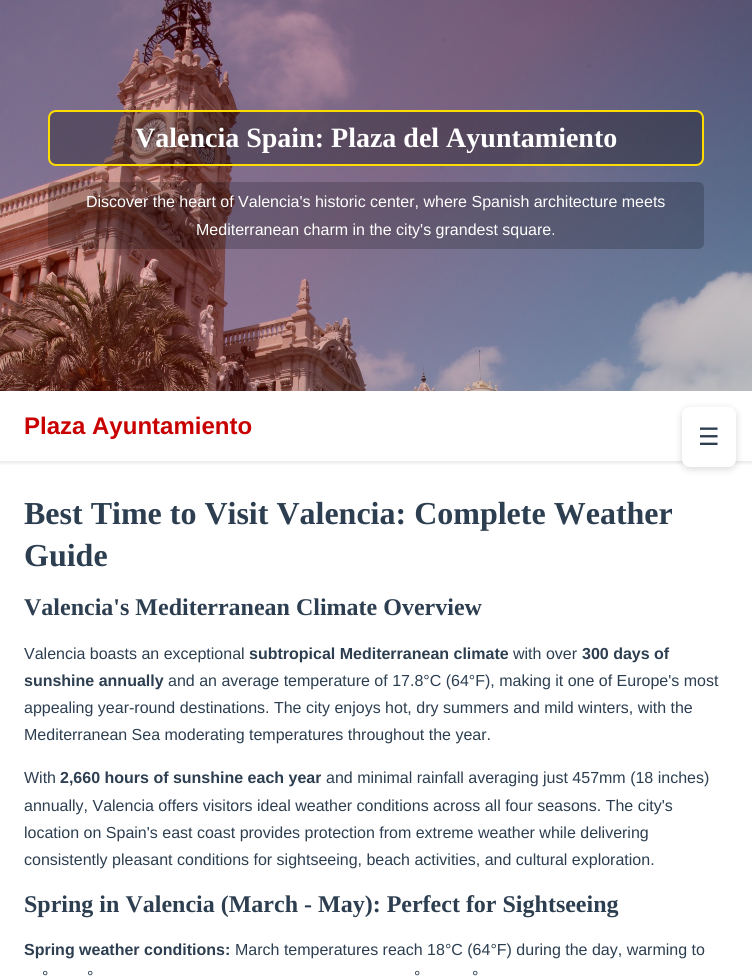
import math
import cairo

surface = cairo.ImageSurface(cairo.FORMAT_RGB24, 752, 977)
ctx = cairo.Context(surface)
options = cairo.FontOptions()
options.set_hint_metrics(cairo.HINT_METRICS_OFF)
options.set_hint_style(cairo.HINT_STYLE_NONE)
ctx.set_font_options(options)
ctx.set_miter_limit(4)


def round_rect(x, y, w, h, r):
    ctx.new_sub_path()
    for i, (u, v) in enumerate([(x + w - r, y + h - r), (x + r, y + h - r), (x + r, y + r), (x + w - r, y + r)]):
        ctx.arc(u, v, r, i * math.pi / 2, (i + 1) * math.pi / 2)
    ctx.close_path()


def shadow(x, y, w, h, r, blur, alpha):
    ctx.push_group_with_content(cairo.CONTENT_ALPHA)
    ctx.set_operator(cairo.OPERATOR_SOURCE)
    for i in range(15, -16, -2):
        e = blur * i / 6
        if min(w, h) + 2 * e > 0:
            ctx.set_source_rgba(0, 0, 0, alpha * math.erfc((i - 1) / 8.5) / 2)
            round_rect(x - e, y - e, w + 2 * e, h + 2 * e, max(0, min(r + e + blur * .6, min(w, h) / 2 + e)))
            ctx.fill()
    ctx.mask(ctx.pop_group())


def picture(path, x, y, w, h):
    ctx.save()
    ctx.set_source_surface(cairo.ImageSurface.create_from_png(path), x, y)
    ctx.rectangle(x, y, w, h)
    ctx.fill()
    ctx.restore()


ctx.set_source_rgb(1, 1, 1)
ctx.paint()
picture("img1.png", 0, 0, 752, 391)
ctx.set_source_rgba(0, 0, 0, 0.3)
round_rect(49, 111, 654, 54, 7)
ctx.fill_preserve()
ctx.set_source_rgb(1, 0.863, 0)
ctx.stroke()
ctx.select_font_face("Liberation Serif", cairo.FONT_SLANT_NORMAL, cairo.FONT_WEIGHT_BOLD)
ctx.set_font_size(28)
ctx.set_source_rgb(1, 1, 1)
ctx.move_to(135, 147)
ctx.show_text("Valencia Spain: Plaza del Ayuntamiento")
ctx.set_source_rgba(0, 0, 0, 0.2)
round_rect(48, 182, 656, 67, 6)
ctx.fill()
ctx.select_font_face("Liberation Sans")
ctx.set_font_size(16)
ctx.set_source_rgb(1, 1, 1)
ctx.move_to(86, 207)
ctx.show_text("Discover the heart of Valencia's historic center, where Spanish architecture meets")
ctx.move_to(196, 235)
ctx.show_text("Mediterranean charm in the city's grandest square.")
ctx.save()
ctx.rectangle(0, 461, 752, 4)
ctx.clip()
ctx.set_source_rgb(0, 0, 0)
shadow(0, 393, 752, 70, 0, 2, 0.1)
ctx.restore()
ctx.select_font_face("Liberation Sans", cairo.FONT_SLANT_NORMAL, cairo.FONT_WEIGHT_BOLD)
ctx.set_font_size(24)
ctx.set_source_rgb(0.784, 0, 0)
ctx.move_to(24, 434)
ctx.show_text("Plaza Ayuntamiento")
ctx.set_source_rgb(0, 0, 0)
shadow(682, 409, 54, 60, 8, 4, 0.15)
ctx.set_source_rgb(1, 1, 1)
round_rect(682, 407, 54, 60, 8)
ctx.fill()
ctx.select_font_face("DejaVu Sans")
ctx.set_source_rgb(0.173, 0.243, 0.314)
ctx.move_to(698, 445)
ctx.show_text("☰")
ctx.select_font_face("Liberation Serif", cairo.FONT_SLANT_NORMAL, cairo.FONT_WEIGHT_BOLD)
ctx.set_font_size(32)
ctx.move_to(24, 524)
ctx.show_text("Best Time to Visit Valencia: Complete Weather")
ctx.move_to(24, 566)
ctx.show_text("Guide")
ctx.set_font_size(24)
ctx.move_to(24, 615)
ctx.show_text("Valencia's Mediterranean Climate Overview")
ctx.select_font_face("Liberation Sans")
ctx.set_font_size(16)
ctx.move_to(24, 659)
ctx.show_text("Valencia boasts an exceptional")
ctx.select_font_face("Liberation Sans", cairo.FONT_SLANT_NORMAL, cairo.FONT_WEIGHT_BOLD)
ctx.move_to(249, 659)
ctx.show_text("subtropical Mediterranean climate")
ctx.select_font_face("Liberation Sans")
ctx.move_to(513, 659)
ctx.show_text("with over")
ctx.select_font_face("Liberation Sans", cairo.FONT_SLANT_NORMAL, cairo.FONT_WEIGHT_BOLD)
ctx.move_to(582, 659)
ctx.show_text("300 days of")
ctx.move_to(24, 686)
ctx.show_text("sunshine annually")
ctx.select_font_face("Liberation Sans")
ctx.move_to(168, 686)
ctx.show_text("and an average temperature of 17.8°C (64°F), making it one of Europe's most")
ctx.move_to(24, 713)
ctx.show_text("appealing year-round destinations. The city enjoys hot, dry summers and mild winters, with the")
ctx.move_to(24, 740)
ctx.show_text("Mediterranean Sea moderating temperatures throughout the year.")
ctx.move_to(24, 783)
ctx.show_text("With")
ctx.select_font_face("Liberation Sans", cairo.FONT_SLANT_NORMAL, cairo.FONT_WEIGHT_BOLD)
ctx.move_to(60, 783)
ctx.show_text("2,660 hours of sunshine each year")
ctx.select_font_face("Liberation Sans")
ctx.move_to(326, 783)
ctx.show_text("and minimal rainfall averaging just 457mm (18 inches)")
ctx.move_to(24, 811)
ctx.show_text("annually, Valencia offers visitors ideal weather conditions across all four seasons. The city's")
ctx.move_to(24, 838)
ctx.show_text("location on Spain's east coast provides protection from extreme weather while delivering")
ctx.move_to(24, 865)
ctx.show_text("consistently pleasant conditions for sightseeing, beach activities, and cultural exploration.")
ctx.select_font_face("Liberation Serif", cairo.FONT_SLANT_NORMAL, cairo.FONT_WEIGHT_BOLD)
ctx.set_font_size(24)
ctx.move_to(24, 912)
ctx.show_text("Spring in Valencia (March - May): Perfect for Sightseeing")
ctx.select_font_face("Liberation Sans", cairo.FONT_SLANT_NORMAL, cairo.FONT_WEIGHT_BOLD)
ctx.set_font_size(16)
ctx.move_to(24, 955)
ctx.show_text("Spring weather conditions:")
ctx.select_font_face("Liberation Sans")
ctx.move_to(235, 955)
ctx.show_text("March temperatures reach 18°C (64°F) during the day, warming to")
ctx.move_to(42, 982)
ctx.show_text("°")
ctx.move_to(87, 982)
ctx.show_text("°")
ctx.move_to(414, 982)
ctx.show_text("°")
ctx.move_to(472, 982)
ctx.show_text("°")
surface.write_to_png("page.png")
